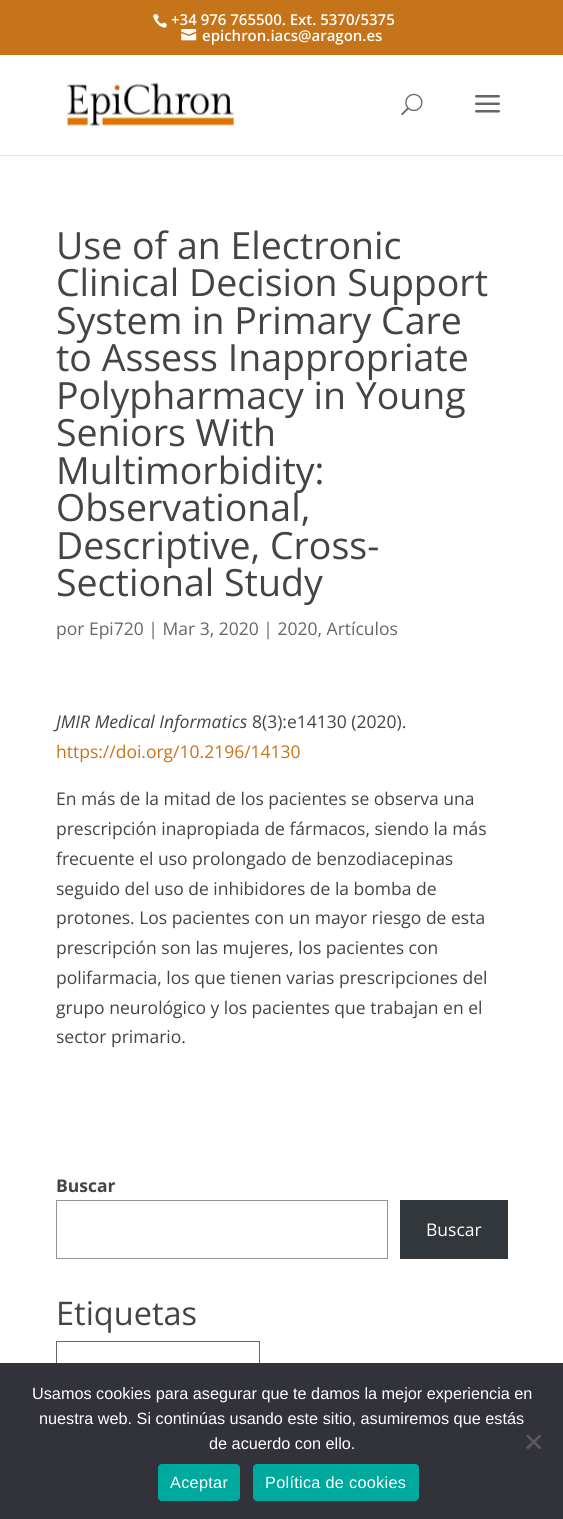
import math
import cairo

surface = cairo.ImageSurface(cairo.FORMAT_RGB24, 563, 1519)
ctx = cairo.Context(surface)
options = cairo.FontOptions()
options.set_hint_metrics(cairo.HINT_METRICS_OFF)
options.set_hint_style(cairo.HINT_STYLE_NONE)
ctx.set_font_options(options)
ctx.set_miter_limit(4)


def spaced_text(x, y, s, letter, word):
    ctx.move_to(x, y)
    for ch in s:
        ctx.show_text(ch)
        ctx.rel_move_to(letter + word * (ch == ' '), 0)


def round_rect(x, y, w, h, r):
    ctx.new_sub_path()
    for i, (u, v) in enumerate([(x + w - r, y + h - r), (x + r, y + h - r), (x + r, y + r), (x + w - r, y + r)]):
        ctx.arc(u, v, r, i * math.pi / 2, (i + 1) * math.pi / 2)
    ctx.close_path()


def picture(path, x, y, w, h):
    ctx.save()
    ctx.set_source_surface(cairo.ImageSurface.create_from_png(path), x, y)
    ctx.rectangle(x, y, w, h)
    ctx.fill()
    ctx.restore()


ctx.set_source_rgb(1, 1, 1)
ctx.paint()
ctx.set_source_rgb(0.773, 0.455, 0.098)
ctx.rectangle(0, 0, 563, 55)
ctx.fill()
picture("img1.png", 153, 14, 14, 14)
ctx.select_font_face("Open Sans SemiBold")
ctx.set_font_size(15)
ctx.set_source_rgb(1, 1, 1)
ctx.move_to(171, 25)
ctx.show_text("+34 976 765500. Ext. 5370/5375")
picture("img2.png", 181, 29, 16, 12)
ctx.move_to(202, 41)
ctx.show_text("epichron.iacs@aragon.es")
ctx.set_source_rgb(0.902, 0.902, 0.902)
ctx.new_path()
ctx.move_to(0, 155)
ctx.line_to(0, 156)
ctx.line_to(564, 156)
ctx.line_to(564, 56)
ctx.line_to(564, 155)
ctx.close_path()
ctx.fill()
picture("img3.png", 66, 82, 168, 45)
picture("img4.png", 401, 93, 22, 23)
picture("img5.png", 475, 95, 25, 18)
ctx.select_font_face("Open Sans")
ctx.set_font_size(37.5)
ctx.set_source_rgb(0.267, 0.267, 0.267)
ctx.move_to(56, 259)
ctx.show_text("Use of an Electronic")
ctx.move_to(56, 296)
ctx.show_text("Clinical Decision Support")
ctx.move_to(56, 334)
ctx.show_text("System in Primary Care")
ctx.move_to(56, 371)
ctx.show_text("to Assess Inappropriate")
ctx.move_to(56, 409)
ctx.show_text("Polypharmacy in Young")
ctx.move_to(56, 446)
ctx.show_text("Seniors With")
ctx.move_to(56, 484)
ctx.show_text("Multimorbidity:")
ctx.move_to(56, 521)
ctx.show_text("Observational,")
ctx.move_to(56, 559)
ctx.show_text("Descriptive, Cross-")
ctx.move_to(56, 596)
ctx.show_text("Sectional Study")
ctx.set_font_size(17.5)
ctx.set_source_rgb(0.4, 0.4, 0.4)
ctx.move_to(56, 635)
ctx.show_text("por Epi720 | Mar 3, 2020 | 2020, Artículos")
ctx.select_font_face("Open Sans", cairo.FONT_SLANT_ITALIC)
ctx.set_source_rgb(0.267, 0.267, 0.267)
ctx.move_to(56, 728)
ctx.show_text("JMIR Medical Informatics")
ctx.select_font_face("Open Sans")
ctx.move_to(252, 728)
ctx.show_text("8(3):e14130 (2020).")
ctx.set_source_rgb(0.773, 0.455, 0.098)
ctx.move_to(56, 758)
ctx.show_text("https://doi.org/10.2196/14130")
ctx.set_source_rgb(0.267, 0.267, 0.267)
ctx.move_to(56, 805)
ctx.show_text("En más de la mitad de los pacientes se observa una")
ctx.move_to(56, 835)
ctx.show_text("prescripción inapropiada de fármacos, siendo la más")
ctx.move_to(56, 865)
ctx.show_text("frecuente el uso prolongado de benzodiacepinas")
ctx.move_to(56, 895)
ctx.show_text("seguido del uso de inhibidores de la bomba de")
ctx.move_to(56, 924)
ctx.show_text("protones. Los pacientes con un mayor riesgo de esta")
ctx.move_to(56, 954)
ctx.show_text("prescripción son las mujeres, los pacientes con")
ctx.move_to(56, 984)
ctx.show_text("polifarmacia, los que tienen varias prescripciones del")
ctx.move_to(56, 1014)
ctx.show_text("grupo neurológico y los pacientes que trabajan en el")
ctx.move_to(56, 1043)
ctx.show_text("sector primario.")
ctx.select_font_face("Open Sans", cairo.FONT_SLANT_NORMAL, cairo.FONT_WEIGHT_BOLD)
ctx.move_to(56, 1192)
ctx.show_text("Buscar")
ctx.rectangle(56.5, 1200.5, 331, 58)
ctx.set_source_rgb(0.58, 0.58, 0.58)
ctx.set_line_width(1)
ctx.stroke()
ctx.set_source_rgb(0.196, 0.216, 0.235)
ctx.rectangle(400, 1200, 108, 59)
ctx.fill()
ctx.select_font_face("Open Sans")
ctx.set_source_rgb(1, 1, 1)
ctx.move_to(426, 1236)
ctx.show_text("Buscar")
ctx.set_font_size(32.5)
ctx.set_source_rgb(0.267, 0.267, 0.267)
ctx.move_to(56, 1325)
ctx.show_text("Etiquetas")
ctx.rectangle(56.5, 1341.5, 203, 52)
ctx.set_source_rgb(0.4, 0.4, 0.4)
ctx.stroke()
ctx.set_source_rgb(0.196, 0.196, 0.227)
ctx.rectangle(0, 1363, 563, 156)
ctx.fill()
ctx.select_font_face("Liberation Sans")
ctx.set_font_size(16.25)
ctx.set_source_rgb(1, 1, 1)
ctx.move_to(32, 1399)
ctx.show_text("Usamos cookies para asegurar que te damos la mejor experiencia en")
ctx.move_to(39, 1424)
ctx.show_text("nuestra web. Si continúas usando este sitio, asumiremos que estás")
ctx.move_to(209, 1449)
ctx.show_text("de acuerdo con ello.")
ctx.set_source_rgb(0.349, 0.349, 0.365)
ctx.new_path()
ctx.move_to(539.5, 1434.5)
ctx.line_to(541.5, 1436)
ctx.line_to(528, 1449.5)
ctx.line_to(526, 1447.5)
ctx.close_path()
ctx.fill()
ctx.new_path()
ctx.move_to(526, 1436)
ctx.line_to(528, 1434.5)
ctx.line_to(541.5, 1447.5)
ctx.line_to(539.5, 1449.5)
ctx.close_path()
ctx.fill()
ctx.set_source_rgb(0, 0.663, 0.616)
round_rect(158, 1464, 82, 37, 4)
ctx.fill()
ctx.set_source_rgb(1, 1, 1)
spaced_text(170, 1488, "Aceptar", 0.3, 0)
ctx.set_source_rgb(0, 0.663, 0.616)
round_rect(253, 1464, 166, 37, 4)
ctx.fill()
ctx.set_source_rgb(1, 1, 1)
spaced_text(265, 1488, "Política de cookies", 0.3, 0)
surface.write_to_png("page.png")
